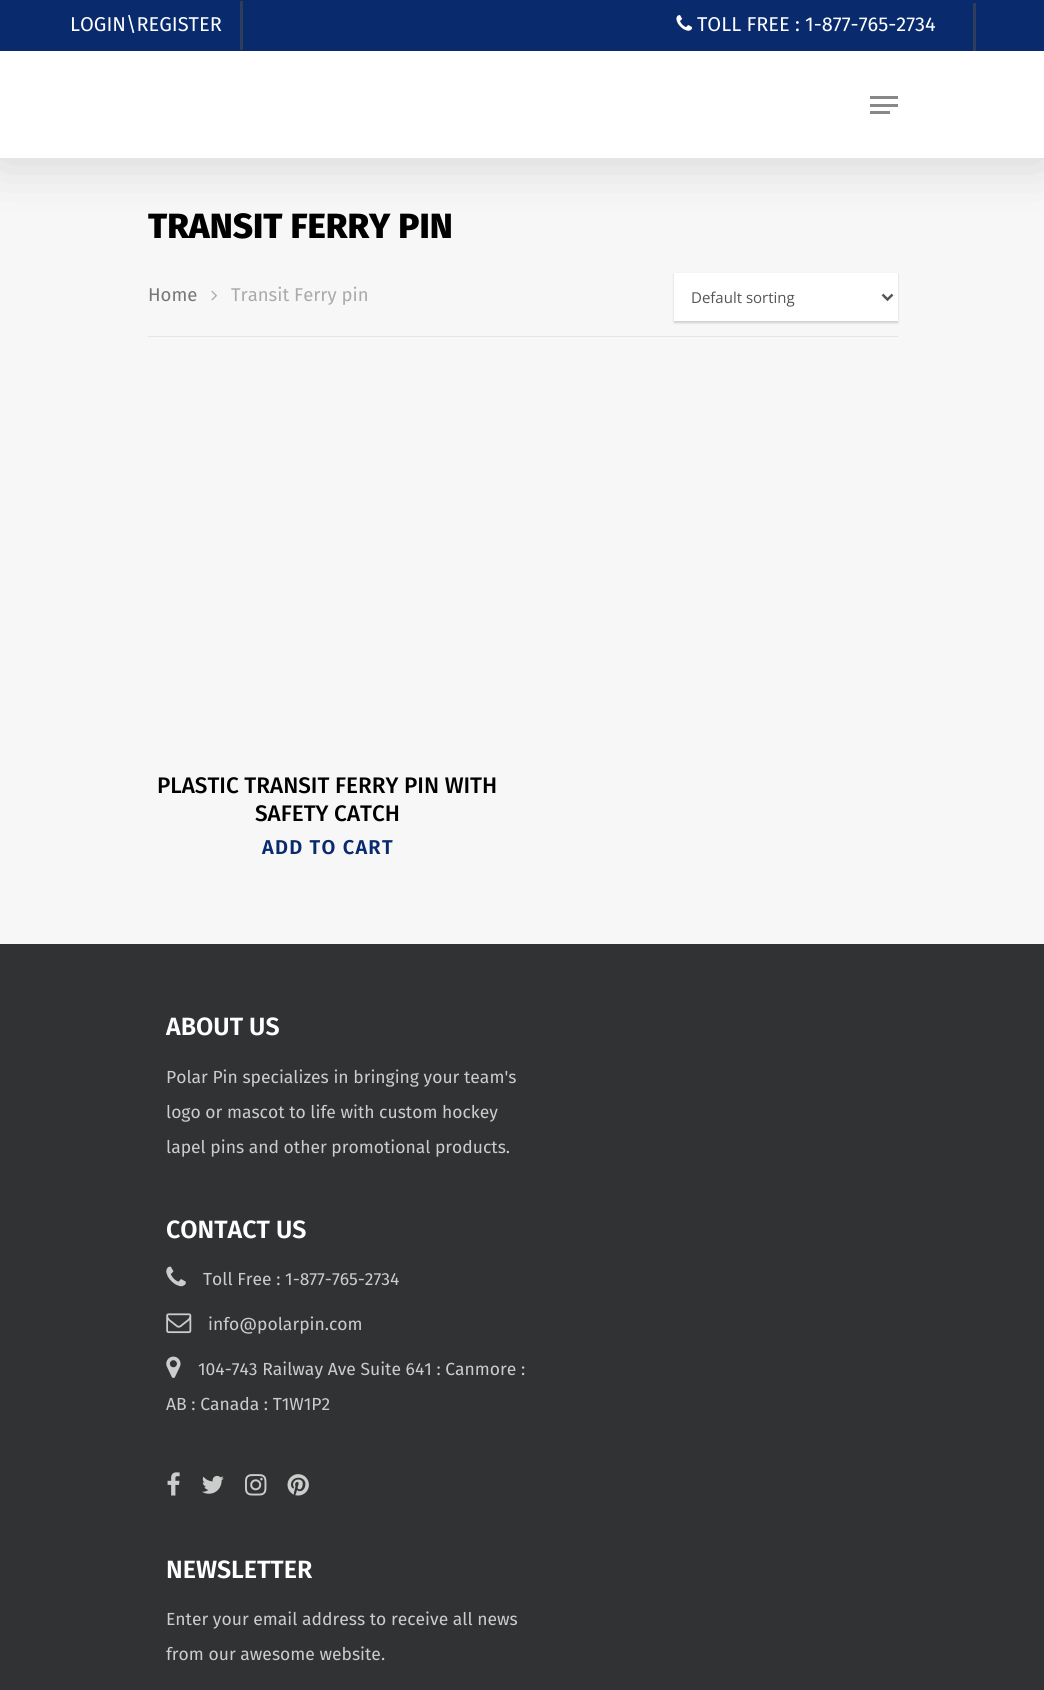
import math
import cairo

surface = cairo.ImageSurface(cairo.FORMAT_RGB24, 1044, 1690)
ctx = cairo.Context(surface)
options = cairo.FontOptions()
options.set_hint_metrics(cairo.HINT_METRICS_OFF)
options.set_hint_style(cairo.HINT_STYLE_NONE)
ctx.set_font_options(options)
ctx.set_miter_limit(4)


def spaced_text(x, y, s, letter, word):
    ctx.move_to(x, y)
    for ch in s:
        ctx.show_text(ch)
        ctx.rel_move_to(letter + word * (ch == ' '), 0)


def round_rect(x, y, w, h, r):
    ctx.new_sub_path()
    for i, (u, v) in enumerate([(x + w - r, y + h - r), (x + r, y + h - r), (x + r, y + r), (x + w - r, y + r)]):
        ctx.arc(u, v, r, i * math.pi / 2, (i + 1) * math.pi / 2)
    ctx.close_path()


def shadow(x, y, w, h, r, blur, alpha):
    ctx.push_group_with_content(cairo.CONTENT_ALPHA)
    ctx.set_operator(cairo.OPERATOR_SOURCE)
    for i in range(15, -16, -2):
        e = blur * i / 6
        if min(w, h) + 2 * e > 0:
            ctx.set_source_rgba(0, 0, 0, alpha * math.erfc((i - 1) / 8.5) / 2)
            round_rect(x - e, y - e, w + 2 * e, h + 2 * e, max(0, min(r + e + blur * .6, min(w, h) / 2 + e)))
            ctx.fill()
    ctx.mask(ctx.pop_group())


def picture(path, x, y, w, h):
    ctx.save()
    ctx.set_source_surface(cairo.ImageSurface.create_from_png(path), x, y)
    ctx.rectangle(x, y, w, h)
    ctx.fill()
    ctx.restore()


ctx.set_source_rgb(0.192, 0.196, 0.2)
ctx.paint()
ctx.set_source_rgb(0.965, 0.965, 0.965)
ctx.rectangle(0, 158, 1044, 786)
ctx.fill()
ctx.set_source_rgb(0, 0, 0)
shadow(0, 4, 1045, 157, 0, 28, 0.15)
ctx.set_source_rgb(1, 1, 1)
ctx.rectangle(0, 51, 1044, 107)
ctx.fill()
ctx.set_source_rgb(0.039, 0.169, 0.431)
ctx.rectangle(0, 0, 1044, 51)
ctx.fill()
ctx.select_font_face("Fira Sans")
ctx.set_font_size(20)
ctx.set_source_rgb(1, 1, 1)
ctx.move_to(70, 31)
ctx.show_text("LOGIN\\REGISTER")
ctx.set_source_rgb(0.184, 0.239, 0.361)
ctx.rectangle(240, 1, 3, 49)
ctx.fill()
picture("img1.png", 676, 15, 17, 16)
ctx.set_source_rgb(1, 1, 1)
ctx.move_to(697, 31)
ctx.show_text("TOLL FREE : 1-877-765-2734")
ctx.set_source_rgb(0.184, 0.239, 0.361)
ctx.rectangle(973, 3, 3, 48)
ctx.fill()
ctx.set_source_rgb(0.533, 0.533, 0.533)
ctx.rectangle(870, 96, 28, 3)
ctx.fill()
ctx.rectangle(870, 111, 20, 3)
ctx.fill()
ctx.rectangle(870, 104, 28, 3)
ctx.fill()
ctx.select_font_face("Fira Sans ExtraBold")
ctx.set_font_size(35)
ctx.set_source_rgb(0, 0, 0)
ctx.move_to(148, 238)
ctx.show_text("TRANSIT FERRY PIN")
ctx.set_source_rgb(0.898, 0.898, 0.898)
ctx.rectangle(148, 336, 750, 1)
ctx.fill()
ctx.select_font_face("Fira Sans")
ctx.set_font_size(18.5)
ctx.set_source_rgb(0.463, 0.463, 0.463)
ctx.move_to(148, 301)
ctx.show_text("Home")
picture("img2.png", 211, 290, 6, 11)
ctx.set_source_rgb(0.667, 0.667, 0.667)
ctx.move_to(231, 301)
ctx.show_text("Transit Ferry pin")
ctx.set_source_rgb(0, 0, 0)
shadow(674, 274, 224, 49, 0, 1, 0.16)
ctx.set_source_rgb(1, 1, 1)
ctx.rectangle(674, 273, 224, 48)
ctx.fill()
ctx.new_path()
ctx.move_to(882.5, 294.5)
ctx.line_to(887.5, 299.5)
ctx.line_to(892.5, 294.5)
ctx.set_source_rgb(0.333, 0.333, 0.333)
ctx.set_line_width(2.5)
ctx.stroke()
ctx.select_font_face("Open Sans")
ctx.set_font_size(15)
ctx.move_to(691, 303)
ctx.show_text("Default sorting")
ctx.select_font_face("Fira Sans Medium")
ctx.set_font_size(22.5)
ctx.set_source_rgb(0, 0, 0)
ctx.move_to(157, 793)
ctx.show_text("PLASTIC TRANSIT FERRY PIN WITH")
ctx.move_to(255, 821)
ctx.show_text("SAFETY CATCH")
ctx.select_font_face("Fira Sans SemiBold")
ctx.set_font_size(20)
ctx.set_source_rgb(0.039, 0.169, 0.431)
spaced_text(262, 854, "ADD TO CART", 1.25, 0)
ctx.set_font_size(25)
ctx.set_source_rgb(1, 1, 1)
ctx.move_to(166, 1035)
ctx.show_text("ABOUT US")
ctx.select_font_face("Fira Sans")
ctx.set_font_size(17.5)
ctx.set_source_rgb(0.8, 0.8, 0.8)
ctx.move_to(166, 1083)
ctx.show_text("Polar Pin specializes in bringing your team's")
ctx.move_to(166, 1118)
ctx.show_text("logo or mascot to life with custom hockey")
ctx.move_to(166, 1153)
ctx.show_text("lapel pins and other promotional products.")
ctx.select_font_face("Fira Sans SemiBold")
ctx.set_font_size(25)
ctx.set_source_rgb(1, 1, 1)
ctx.move_to(166, 1238)
ctx.show_text("CONTACT US")
picture("img3.png", 166, 1266, 20, 21)
ctx.select_font_face("Fira Sans")
ctx.set_font_size(17.5)
ctx.set_source_rgb(0.8, 0.8, 0.8)
ctx.move_to(203, 1285)
ctx.show_text("Toll Free : 1-877-765-2734")
picture("img4.png", 166, 1313, 26, 21)
ctx.move_to(208, 1330)
ctx.show_text("info@polarpin.com")
picture("img5.png", 166, 1356, 15, 22)
ctx.move_to(198, 1375)
ctx.show_text("104-743 Railway Ave Suite 641 : Canmore :")
ctx.move_to(166, 1410)
ctx.show_text("AB : Canada : T1W1P2")
picture("img6.png", 167, 1472, 13, 24)
picture("img7.png", 202, 1475, 22, 19)
picture("img8.png", 245, 1474, 22, 22)
picture("img9.png", 287, 1474, 22, 22)
ctx.select_font_face("Fira Sans SemiBold")
ctx.set_font_size(25)
ctx.set_source_rgb(1, 1, 1)
ctx.move_to(166, 1578)
ctx.show_text("NEWSLETTER")
ctx.select_font_face("Fira Sans")
ctx.set_font_size(17.5)
ctx.set_source_rgb(0.8, 0.8, 0.8)
ctx.move_to(166, 1625)
ctx.show_text("Enter your email address to receive all news")
ctx.move_to(166, 1660)
ctx.show_text("from our awesome website.")
surface.write_to_png("page.png")
